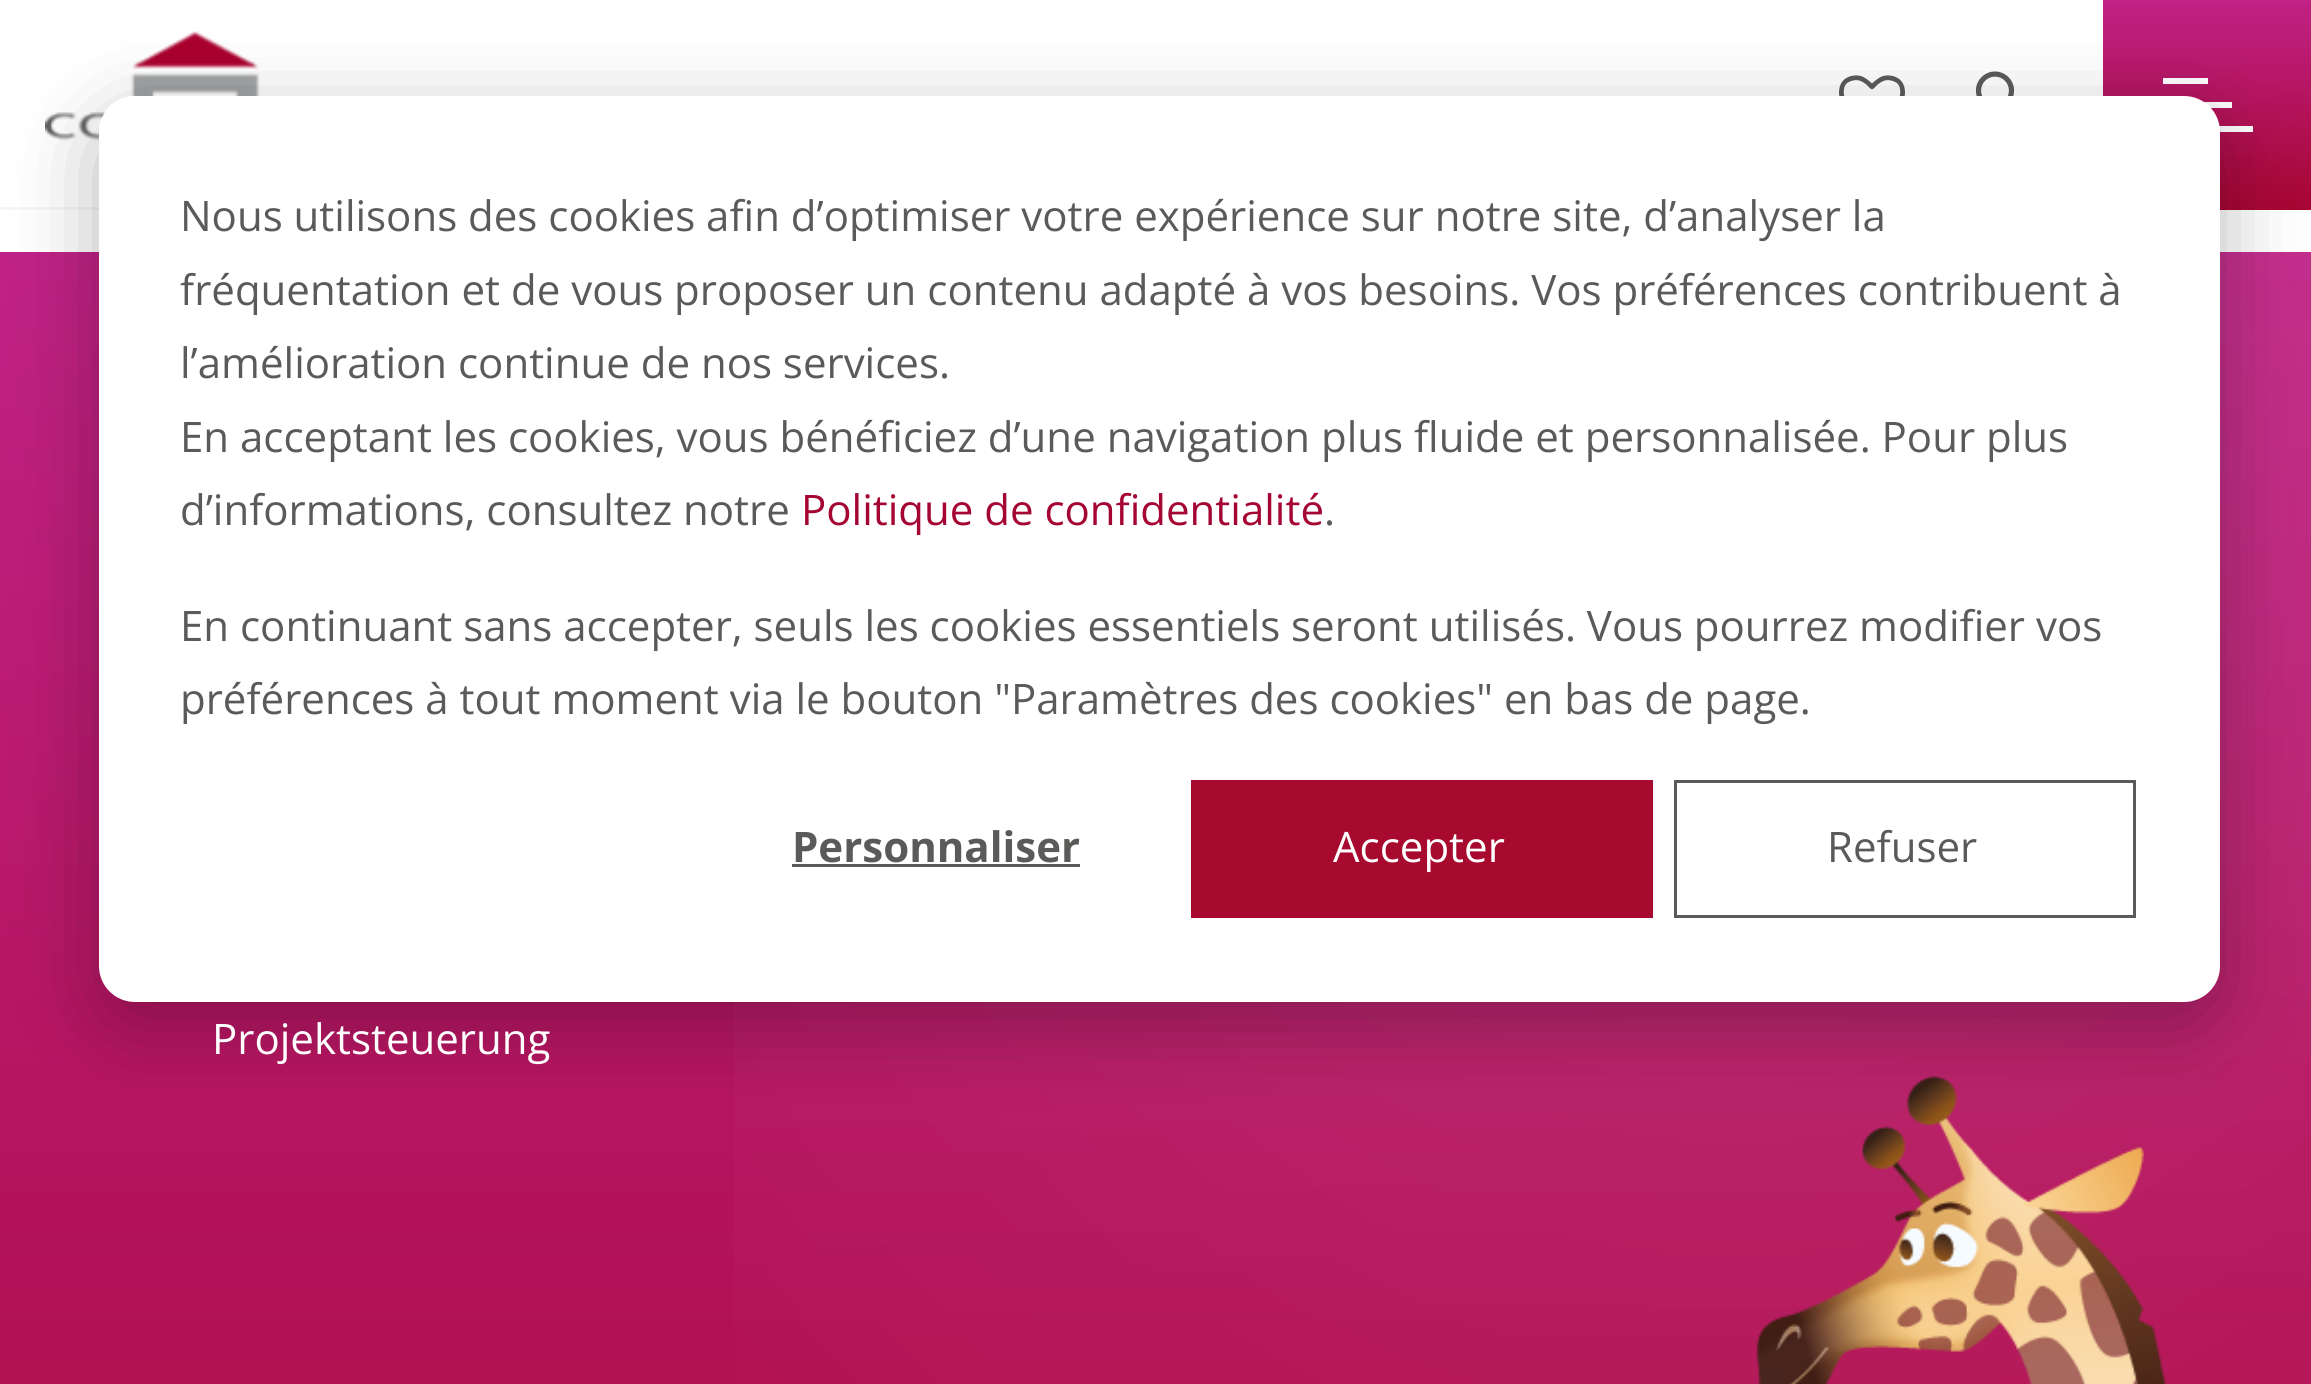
import math
import cairo

surface = cairo.ImageSurface(cairo.FORMAT_RGB24, 2311, 1384)
ctx = cairo.Context(surface)
options = cairo.FontOptions()
options.set_hint_metrics(cairo.HINT_METRICS_OFF)
options.set_hint_style(cairo.HINT_STYLE_NONE)
ctx.set_font_options(options)
ctx.set_miter_limit(4)


def round_rect(x, y, w, h, r):
    ctx.new_sub_path()
    for i, (u, v) in enumerate([(x + w - r, y + h - r), (x + r, y + h - r), (x + r, y + r), (x + w - r, y + r)]):
        ctx.arc(u, v, r, i * math.pi / 2, (i + 1) * math.pi / 2)
    ctx.close_path()


def shadow(x, y, w, h, r, blur, alpha):
    ctx.push_group_with_content(cairo.CONTENT_ALPHA)
    ctx.set_operator(cairo.OPERATOR_SOURCE)
    for i in range(15, -16, -2):
        e = blur * i / 6
        if min(w, h) + 2 * e > 0:
            ctx.set_source_rgba(0, 0, 0, alpha * math.erfc((i - 1) / 8.5) / 2)
            round_rect(x - e, y - e, w + 2 * e, h + 2 * e, max(0, min(r + e + blur * .6, min(w, h) / 2 + e)))
            ctx.fill()
    ctx.mask(ctx.pop_group())


def picture(path, x, y, w, h):
    ctx.save()
    ctx.set_source_surface(cairo.ImageSurface.create_from_png(path), x, y)
    ctx.rectangle(x, y, w, h)
    ctx.fill()
    ctx.restore()


ctx.set_source_rgb(1, 1, 1)
ctx.paint()
ctx.set_source_rgb(0.961, 0.961, 0.961)
ctx.rectangle(0, 207, 99, 3)
ctx.fill()
picture("img1.png", 45, 31, 215, 110)
picture("img2.png", 1839, 75, 66, 21)
picture("img3.png", 1975, 71, 40, 25)
gradient = cairo.LinearGradient(2208, 0, 2208, 210)
gradient.add_color_stop_rgba(0, 0.753, 0.133, 0.525, 1)
gradient.add_color_stop_rgba(1, 0.659, 0.02, 0.196, 1)
ctx.set_source(gradient)
ctx.rectangle(2103, 0, 208, 210)
ctx.fill()
ctx.set_source_rgb(1, 1, 1)
ctx.rectangle(2163, 78, 45, 6)
ctx.fill()
ctx.rectangle(2204, 102, 28, 6)
ctx.fill()
ctx.rectangle(2219, 126, 34, 6)
ctx.fill()
gradient = cairo.LinearGradient(1156, 252, 1157, 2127)
gradient.add_color_stop_rgba(0, 0.753, 0.133, 0.525, 1)
gradient.add_color_stop_rgba(1, 0.659, 0.02, 0.196, 1)
ctx.set_source(gradient)
ctx.rectangle(0, 252, 2311, 1132)
ctx.fill()
gradient = cairo.RadialGradient(1735, 533, 0, 1735, 533, 2356)
gradient.add_color_stop_rgba(0, 1, 1, 1, 0.1)
gradient.add_color_stop_rgba(0.6, 1, 1, 1, 0)
ctx.set_source(gradient)
ctx.rectangle(734, 252, 1577, 1132)
ctx.fill()
picture("img4.png", 1756, 1076, 411, 308)
ctx.save()
ctx.set_fill_rule(cairo.FILL_RULE_EVEN_ODD)
ctx.new_path()
ctx.move_to(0, 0)
ctx.line_to(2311, 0)
ctx.line_to(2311, 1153)
ctx.line_to(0, 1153)
ctx.close_path()
ctx.move_to(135, 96)
ctx.line_to(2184, 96)
ctx.curve_to(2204, 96, 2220, 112, 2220, 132)
ctx.line_to(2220, 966)
ctx.curve_to(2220, 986, 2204, 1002, 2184, 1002)
ctx.line_to(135, 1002)
ctx.curve_to(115, 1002, 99, 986, 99, 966)
ctx.line_to(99, 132)
ctx.curve_to(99, 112, 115, 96, 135, 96)
ctx.close_path()
ctx.clip()
ctx.set_source_rgb(0, 0, 0)
shadow(99, 120, 2121, 906, 36, 42, 0.28)
ctx.restore()
ctx.set_source_rgb(1, 1, 1)
round_rect(99, 96, 2121, 906, 36)
ctx.fill()
ctx.select_font_face("Open Sans")
ctx.set_font_size(42)
ctx.set_source_rgb(0.353, 0.353, 0.349)
ctx.move_to(180, 231)
ctx.show_text("Nous utilisons des cookies afin d’optimiser votre expérience sur notre site, d’analyser la")
ctx.move_to(180, 305)
ctx.show_text("fréquentation et de vous proposer un contenu adapté à vos besoins. Vos préférences contribuent à")
ctx.move_to(180, 378)
ctx.show_text("l’amélioration continue de nos services.")
ctx.move_to(180, 452)
ctx.show_text("En acceptant les cookies, vous bénéficiez d’une navigation plus fluide et personnalisée. Pour plus")
ctx.move_to(180, 525)
ctx.show_text("d’informations, consultez notre")
ctx.set_source_rgb(0.647, 0.02, 0.196)
ctx.move_to(801, 525)
ctx.show_text("Politique de confidentialité")
ctx.set_source_rgb(0.353, 0.353, 0.349)
ctx.move_to(1324, 525)
ctx.show_text(".")
ctx.move_to(180, 641)
ctx.show_text("En continuant sans accepter, seuls les cookies essentiels seront utilisés. Vous pourrez modifier vos")
ctx.move_to(180, 714)
ctx.show_text("préférences à tout moment via le bouton \"Paramètres des cookies\" en bas de page.")
ctx.select_font_face("Open Sans", cairo.FONT_SLANT_NORMAL, cairo.FONT_WEIGHT_BOLD)
ctx.move_to(792, 862)
ctx.show_text("Personnaliser")
ctx.rectangle(792, 864, 288, 3)
ctx.fill()
ctx.set_source_rgb(0.659, 0.039, 0.18)
ctx.rectangle(1191, 780, 462, 138)
ctx.fill()
ctx.select_font_face("Open Sans")
ctx.set_source_rgb(1, 1, 1)
ctx.move_to(1333, 862)
ctx.show_text("Accepter")
ctx.rectangle(1675.5, 781.5, 459, 135)
ctx.set_source_rgb(0.353, 0.353, 0.349)
ctx.set_line_width(3)
ctx.stroke()
ctx.move_to(1827, 862)
ctx.show_text("Refuser")
ctx.set_source_rgb(1, 1, 1)
ctx.move_to(212, 1054)
ctx.show_text("Projektsteuerung")
surface.write_to_png("page.png")
